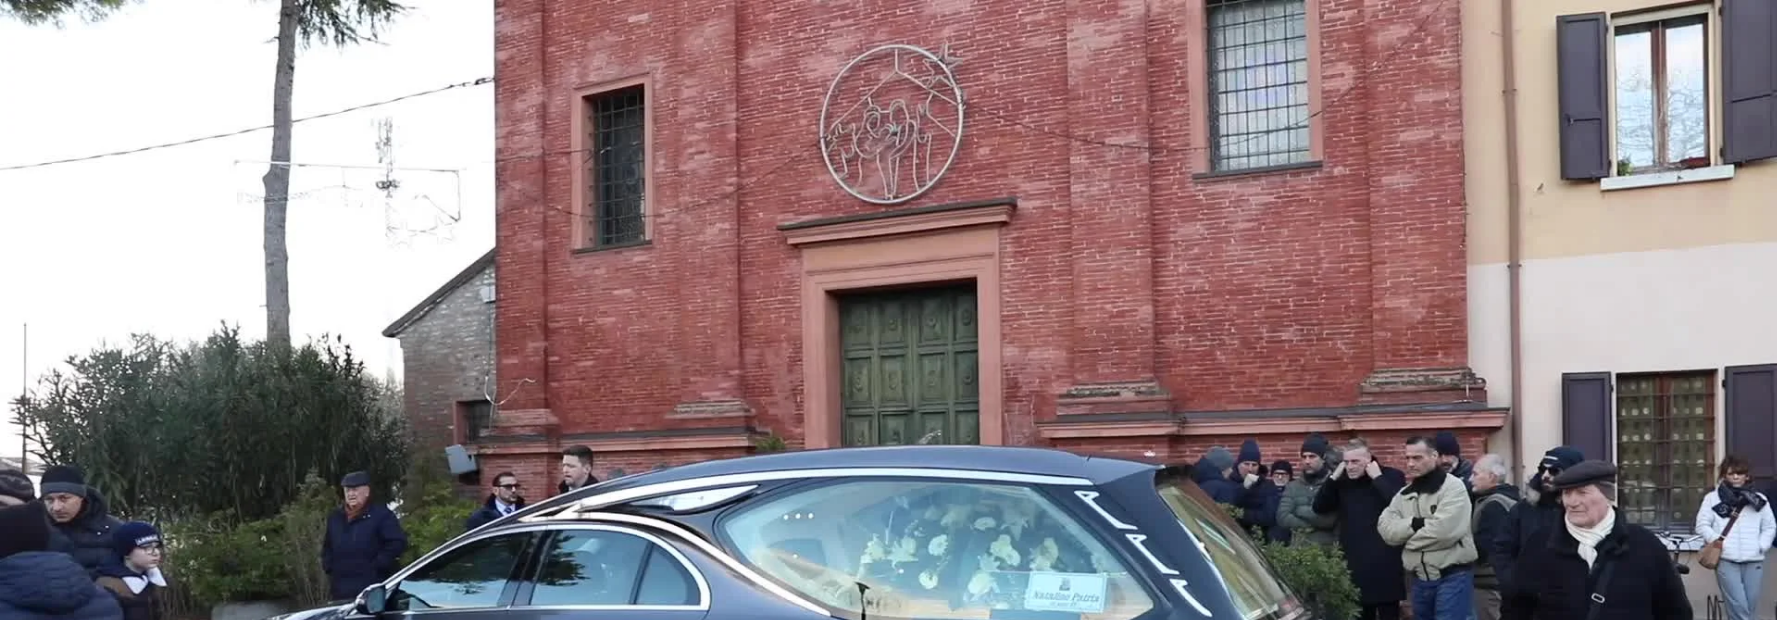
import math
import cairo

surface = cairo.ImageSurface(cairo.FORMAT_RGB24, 1777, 620)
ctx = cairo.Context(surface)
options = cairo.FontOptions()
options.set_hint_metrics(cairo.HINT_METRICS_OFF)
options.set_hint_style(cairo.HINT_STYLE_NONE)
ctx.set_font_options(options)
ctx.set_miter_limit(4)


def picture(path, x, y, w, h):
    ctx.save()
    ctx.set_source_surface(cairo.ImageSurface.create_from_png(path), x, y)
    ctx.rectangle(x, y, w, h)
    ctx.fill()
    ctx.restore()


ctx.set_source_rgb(1, 1, 1)
ctx.paint()
picture("img1.png", 0, 0, 1777, 620)
surface.write_to_png("page.png")
